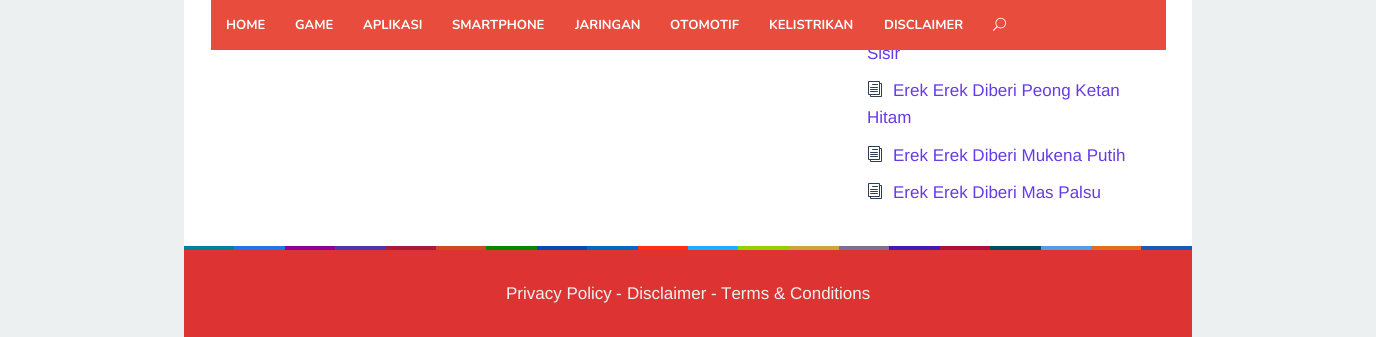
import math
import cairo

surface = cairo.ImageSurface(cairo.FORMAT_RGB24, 1376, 337)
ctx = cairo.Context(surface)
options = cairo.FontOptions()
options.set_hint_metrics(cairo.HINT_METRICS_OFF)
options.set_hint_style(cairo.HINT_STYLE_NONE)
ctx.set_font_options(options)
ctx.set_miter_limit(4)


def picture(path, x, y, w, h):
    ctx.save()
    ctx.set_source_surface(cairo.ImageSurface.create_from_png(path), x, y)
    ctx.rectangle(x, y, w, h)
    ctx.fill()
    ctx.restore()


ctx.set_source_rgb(0.925, 0.941, 0.945)
ctx.paint()
ctx.set_source_rgb(1, 1, 1)
ctx.rectangle(184, 0, 1008, 246)
ctx.fill()
ctx.select_font_face("Liberation Sans")
ctx.set_font_size(17)
ctx.set_source_rgb(0.4, 0.231, 0.898)
ctx.move_to(867, 59)
ctx.show_text("Sisir")
ctx.set_source_rgb(0.906, 0.298, 0.235)
ctx.rectangle(211, 0, 955, 50)
ctx.fill()
ctx.select_font_face("Nunito", cairo.FONT_SLANT_NORMAL, cairo.FONT_WEIGHT_BOLD)
ctx.set_font_size(13)
ctx.set_source_rgb(1, 1, 1)
ctx.move_to(226, 29)
ctx.show_text("HOME")
ctx.move_to(295, 29)
ctx.show_text("GAME")
ctx.move_to(363, 29)
ctx.show_text("APLIKASI")
ctx.move_to(452, 29)
ctx.show_text("SMARTPHONE")
ctx.move_to(575, 29)
ctx.show_text("JARINGAN")
ctx.move_to(670, 29)
ctx.show_text("OTOMOTIF")
ctx.move_to(769, 29)
ctx.show_text("KELISTRIKAN")
ctx.move_to(884, 29)
ctx.show_text("DISCLAIMER")
picture("img1.png", 993, 17, 13, 14)
picture("img2.png", 868, 81, 14, 16)
ctx.select_font_face("Liberation Sans")
ctx.set_font_size(17)
ctx.set_source_rgb(0.4, 0.231, 0.898)
ctx.move_to(893, 96)
ctx.show_text("Erek Erek Diberi Peong Ketan")
ctx.move_to(867, 123)
ctx.show_text("Hitam")
picture("img2.png", 868, 146, 14, 16)
ctx.move_to(893, 161)
ctx.show_text("Erek Erek Diberi Mukena Putih")
picture("img2.png", 868, 183, 14, 16)
ctx.move_to(893, 198)
ctx.show_text("Erek Erek Diberi Mas Palsu")
ctx.set_source_rgb(0, 0.51, 0.6)
ctx.rectangle(184, 246, 50, 4)
ctx.fill()
ctx.set_source_rgb(0.149, 0.447, 0.925)
ctx.rectangle(234, 246, 51, 4)
ctx.fill()
ctx.set_source_rgb(0.549, 0, 0.584)
ctx.rectangle(285, 246, 50, 4)
ctx.fill()
ctx.set_source_rgb(0.318, 0.2, 0.671)
ctx.rectangle(335, 246, 51, 4)
ctx.fill()
ctx.set_source_rgb(0.675, 0.098, 0.239)
ctx.rectangle(386, 246, 50, 4)
ctx.fill()
ctx.set_source_rgb(0.824, 0.278, 0.149)
ctx.rectangle(436, 246, 50, 4)
ctx.fill()
ctx.set_source_rgb(0, 0.541, 0)
ctx.rectangle(486, 246, 51, 4)
ctx.fill()
ctx.set_source_rgb(0.035, 0.29, 0.698)
ctx.rectangle(537, 246, 50, 4)
ctx.fill()
ctx.set_source_rgb(0, 0.416, 0.757)
ctx.rectangle(587, 246, 51, 4)
ctx.fill()
ctx.set_source_rgb(1, 0.18, 0.071)
ctx.rectangle(638, 246, 50, 4)
ctx.fill()
ctx.set_source_rgb(0.122, 0.682, 1)
ctx.rectangle(688, 246, 50, 4)
ctx.fill()
ctx.set_source_rgb(0.569, 0.82, 0)
ctx.rectangle(738, 246, 51, 4)
ctx.fill()
ctx.set_source_rgb(0.808, 0.647, 0.224)
ctx.rectangle(789, 246, 50, 4)
ctx.fill()
ctx.set_source_rgb(0.498, 0.431, 0.58)
ctx.rectangle(839, 246, 50, 4)
ctx.fill()
ctx.set_source_rgb(0.275, 0.09, 0.706)
ctx.rectangle(889, 246, 51, 4)
ctx.fill()
ctx.set_source_rgb(0.678, 0.063, 0.235)
ctx.rectangle(940, 246, 50, 4)
ctx.fill()
ctx.set_source_rgb(0, 0.302, 0.376)
ctx.rectangle(990, 246, 51, 4)
ctx.fill()
ctx.set_source_rgb(0.337, 0.612, 0.89)
ctx.rectangle(1041, 246, 50, 4)
ctx.fill()
ctx.set_source_rgb(0.898, 0.424, 0.098)
ctx.rectangle(1091, 246, 50, 4)
ctx.fill()
ctx.set_source_rgb(0.106, 0.345, 0.722)
ctx.rectangle(1141, 246, 51, 4)
ctx.fill()
ctx.set_source_rgb(0.867, 0.2, 0.2)
ctx.rectangle(184, 250, 1008, 87)
ctx.fill()
ctx.set_source_rgb(0.925, 0.941, 0.945)
ctx.move_to(506, 299)
ctx.show_text("Privacy Policy")
ctx.set_source_rgb(0.949, 0.949, 0.949)
ctx.move_to(616, 299)
ctx.show_text("-")
ctx.set_source_rgb(0.925, 0.941, 0.945)
ctx.move_to(627, 299)
ctx.show_text("Disclaimer")
ctx.set_source_rgb(0.949, 0.949, 0.949)
ctx.move_to(711, 299)
ctx.show_text("-")
ctx.set_source_rgb(0.925, 0.941, 0.945)
ctx.move_to(721, 299)
ctx.show_text("Terms & Conditions")
surface.write_to_png("page.png")
